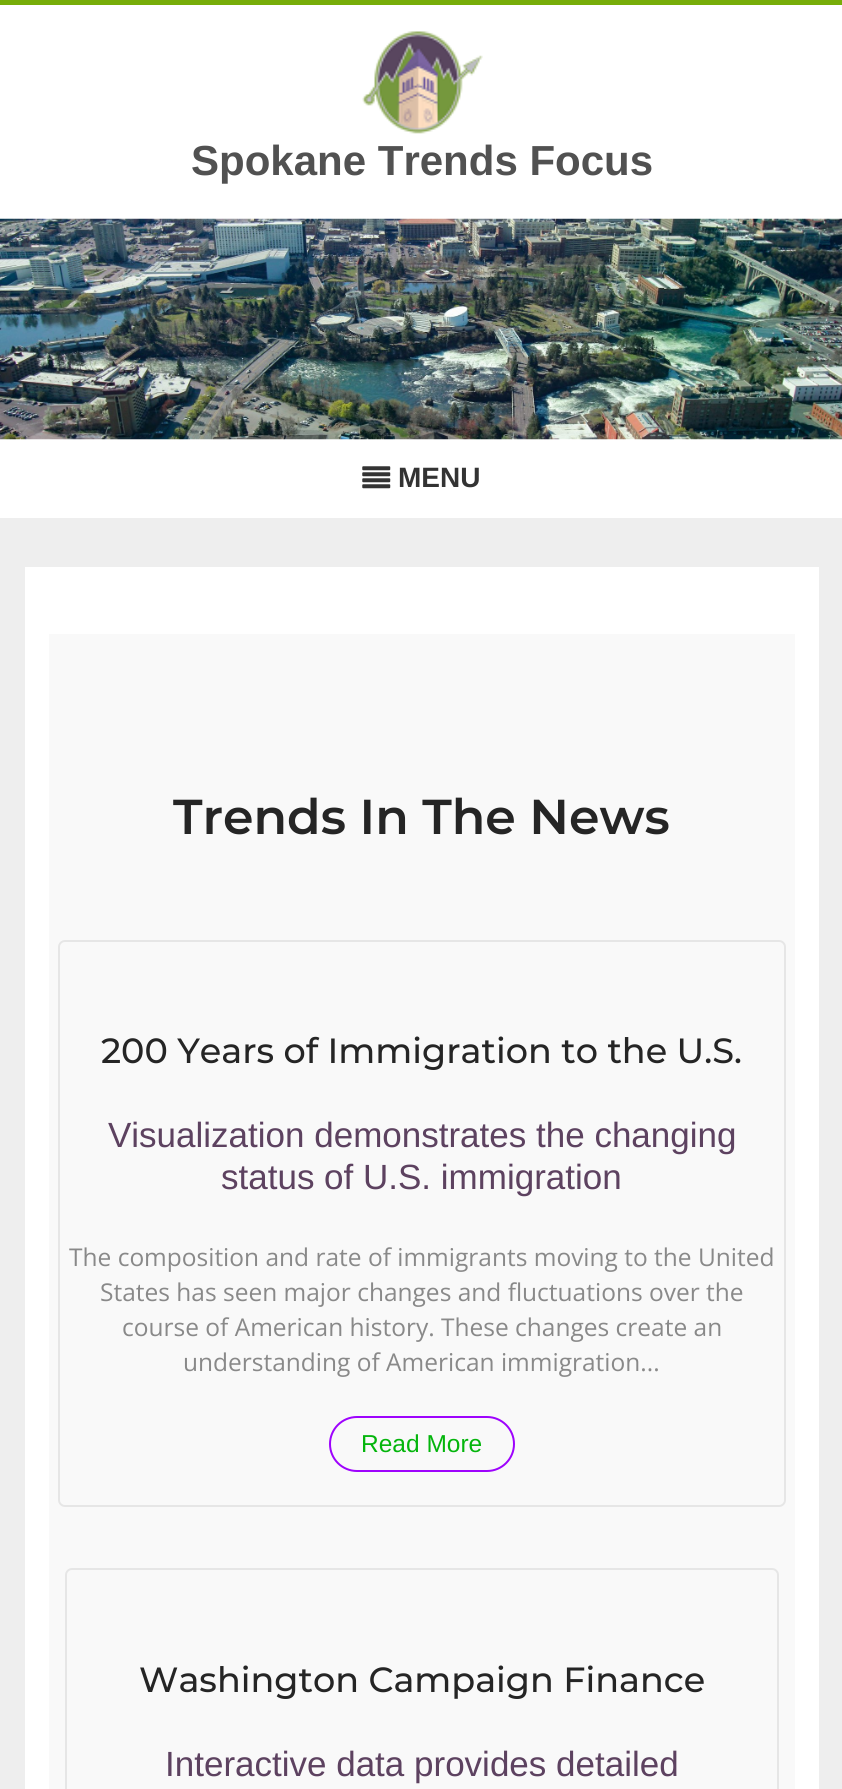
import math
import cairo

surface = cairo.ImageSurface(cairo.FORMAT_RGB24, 842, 1789)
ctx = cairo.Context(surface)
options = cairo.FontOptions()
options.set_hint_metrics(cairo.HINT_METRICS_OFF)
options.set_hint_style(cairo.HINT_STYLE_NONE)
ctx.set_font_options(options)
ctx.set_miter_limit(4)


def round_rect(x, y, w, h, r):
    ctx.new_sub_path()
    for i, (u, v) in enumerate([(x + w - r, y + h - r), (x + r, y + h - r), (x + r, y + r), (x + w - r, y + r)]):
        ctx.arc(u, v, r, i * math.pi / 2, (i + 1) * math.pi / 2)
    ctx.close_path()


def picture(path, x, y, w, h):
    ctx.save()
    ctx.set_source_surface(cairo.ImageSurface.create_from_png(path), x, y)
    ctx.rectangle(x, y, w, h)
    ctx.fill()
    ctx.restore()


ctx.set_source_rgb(0.933, 0.933, 0.933)
ctx.paint()
ctx.set_source_rgb(1, 1, 1)
ctx.rectangle(0, 5, 842, 513)
ctx.fill()
ctx.set_source_rgb(0.467, 0.678, 0.039)
ctx.rectangle(0, 0, 842, 5)
ctx.fill()
picture("img1.png", 362, 31, 121, 103)
ctx.select_font_face("Arimo", cairo.FONT_SLANT_NORMAL, cairo.FONT_WEIGHT_BOLD)
ctx.set_font_size(42)
ctx.set_source_rgb(0.318, 0.318, 0.318)
ctx.move_to(191, 175)
ctx.show_text("Spokane Trends Focus")
picture("img2.png", 0, 218, 842, 222)
picture("img3.png", 362, 466, 29, 23)
ctx.set_font_size(28)
ctx.set_source_rgb(0.2, 0.2, 0.2)
ctx.move_to(398, 487)
ctx.show_text("MENU")
ctx.set_source_rgb(1, 1, 1)
ctx.rectangle(25, 567, 794, 1222)
ctx.fill()
ctx.set_source_rgb(0.976, 0.976, 0.976)
ctx.rectangle(49, 634, 746, 1155)
ctx.fill()
ctx.select_font_face("Montserrat SemiBold")
ctx.set_font_size(49)
ctx.set_source_rgb(0.145, 0.145, 0.145)
ctx.move_to(173, 834)
ctx.show_text("Trends In The News")
round_rect(59, 941, 726, 565, 6)
ctx.set_source_rgb(0.902, 0.902, 0.902)
ctx.stroke()
ctx.select_font_face("Montserrat Medium")
ctx.set_font_size(35)
ctx.set_source_rgb(0.145, 0.145, 0.145)
ctx.move_to(101, 1063)
ctx.show_text("200 Years of Immigration to the U.S.")
ctx.select_font_face("Arimo")
ctx.set_source_rgb(0.365, 0.259, 0.376)
ctx.move_to(108, 1147)
ctx.show_text("Visualization demonstrates the changing")
ctx.move_to(221, 1189)
ctx.show_text("status of U.S. immigration")
ctx.select_font_face("Open Sans")
ctx.set_font_size(24.5)
ctx.set_source_rgb(0.537, 0.537, 0.537)
ctx.move_to(69, 1266)
ctx.show_text("The composition and rate of immigrants moving to the United")
ctx.move_to(100, 1301)
ctx.show_text("States has seen major changes and fluctuations over the")
ctx.move_to(122, 1336)
ctx.show_text("course of American history. These changes create an")
ctx.move_to(183, 1371)
ctx.show_text("understanding of American immigration...")
round_rect(330, 1417, 184, 54, 27)
ctx.set_source_rgb(0.62, 0.012, 0.992)
ctx.stroke()
ctx.select_font_face("Liberation Sans")
ctx.set_source_rgb(0.016, 0.71, 0.047)
ctx.move_to(361, 1452)
ctx.show_text("Read More")
round_rect(66, 1569, 712, 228, 6)
ctx.set_source_rgb(0.902, 0.902, 0.902)
ctx.stroke()
ctx.select_font_face("Montserrat Medium")
ctx.set_font_size(35)
ctx.set_source_rgb(0.145, 0.145, 0.145)
ctx.move_to(139, 1692)
ctx.show_text("Washington Campaign Finance")
ctx.select_font_face("Arimo")
ctx.set_source_rgb(0.365, 0.259, 0.376)
ctx.move_to(165, 1776)
ctx.show_text("Interactive data provides detailed")
surface.write_to_png("page.png")
